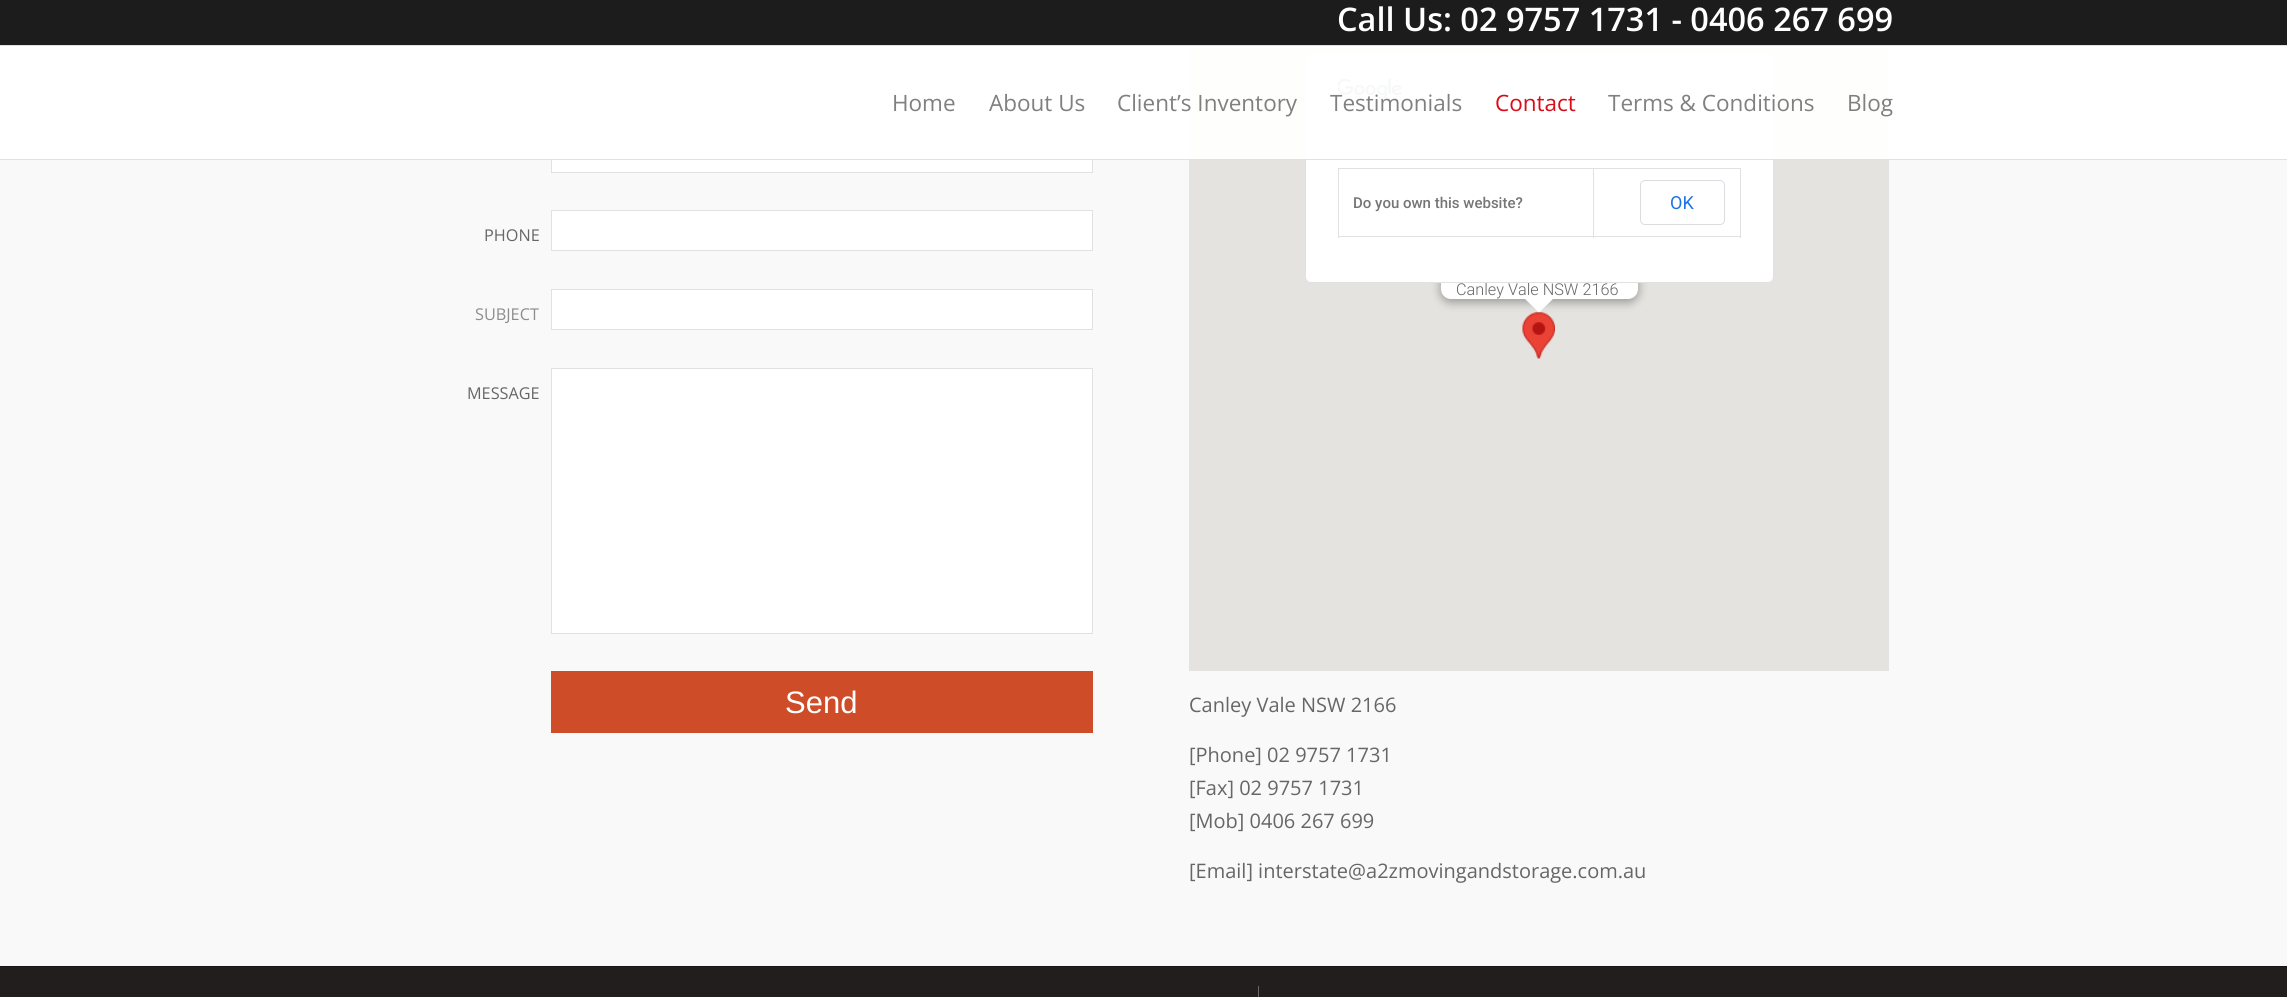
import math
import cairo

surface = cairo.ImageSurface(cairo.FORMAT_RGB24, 2287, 997)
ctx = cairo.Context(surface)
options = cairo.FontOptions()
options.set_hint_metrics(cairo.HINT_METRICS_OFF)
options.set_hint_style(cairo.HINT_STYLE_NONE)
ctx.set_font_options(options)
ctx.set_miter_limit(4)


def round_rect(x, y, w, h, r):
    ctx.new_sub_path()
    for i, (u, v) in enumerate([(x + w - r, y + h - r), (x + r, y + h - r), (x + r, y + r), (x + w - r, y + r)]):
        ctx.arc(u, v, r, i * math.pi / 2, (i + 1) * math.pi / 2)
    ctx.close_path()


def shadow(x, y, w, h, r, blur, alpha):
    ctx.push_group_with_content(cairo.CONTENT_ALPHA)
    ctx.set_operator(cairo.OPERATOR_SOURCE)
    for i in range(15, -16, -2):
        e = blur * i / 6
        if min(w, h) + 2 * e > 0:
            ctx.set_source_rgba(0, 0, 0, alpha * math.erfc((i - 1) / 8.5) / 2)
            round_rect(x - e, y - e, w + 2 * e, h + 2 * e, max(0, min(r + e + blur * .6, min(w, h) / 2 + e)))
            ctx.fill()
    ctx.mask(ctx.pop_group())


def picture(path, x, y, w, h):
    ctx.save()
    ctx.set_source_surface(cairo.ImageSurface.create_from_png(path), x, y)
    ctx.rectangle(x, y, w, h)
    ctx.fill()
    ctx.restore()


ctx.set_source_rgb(0.973, 0.973, 0.973)
ctx.paint()
ctx.set_source_rgb(0.11, 0.11, 0.11)
ctx.rectangle(0, 0, 2287, 45)
ctx.fill()
ctx.select_font_face("Open Sans SemiBold")
ctx.set_font_size(32.5)
ctx.set_source_rgb(1, 1, 1)
ctx.move_to(1337, 31)
ctx.show_text("Call Us: 02 9757 1731 - 0406 267 699")
ctx.rectangle(551.5, 53.5, 541, 40)
ctx.fill_preserve()
ctx.set_source_rgb(0.882, 0.882, 0.882)
ctx.set_line_width(1)
ctx.stroke()
ctx.set_source_rgb(1, 1, 1)
ctx.rectangle(551.5, 131.5, 541, 41)
ctx.fill_preserve()
ctx.set_source_rgb(0.882, 0.882, 0.882)
ctx.stroke()
ctx.set_source_rgb(0.898, 0.89, 0.875)
ctx.rectangle(1189, 46, 700, 625)
ctx.fill()
picture("img2.png", 1522, 312, 33, 47)
ctx.set_source_rgb(0, 0, 0)
shadow(1440, 203, 199, 100, 11, 4.5, 0.3)
ctx.set_source_rgb(1, 1, 1)
round_rect(1441, 201, 197, 98, 10)
ctx.fill()
ctx.select_font_face("Roboto Light")
ctx.set_font_size(16.25)
ctx.set_source_rgb(0.4, 0.4, 0.4)
ctx.move_to(1456, 295)
ctx.show_text("Canley Vale NSW 2166")
ctx.set_source_rgb(1, 1, 1)
round_rect(1305, 53, 469, 230, 6)
ctx.fill()
round_rect(1305.5, 53.5, 468, 229, 5.5)
ctx.set_source_rgba(0, 0, 0, 0.12)
ctx.stroke()
picture("img1.png", 1338, 79, 64, 21)
ctx.set_source_rgba(1, 1, 1, 0.95)
ctx.rectangle(0, 46, 2287, 113)
ctx.fill()
ctx.set_source_rgb(0.882, 0.882, 0.882)
ctx.rectangle(0, 45, 2287, 1)
ctx.fill()
ctx.rectangle(0, 159, 2287, 1)
ctx.fill()
ctx.select_font_face("Open Sans")
ctx.set_font_size(22.5)
ctx.set_source_rgb(0.502, 0.502, 0.502)
ctx.move_to(892, 111)
ctx.show_text("Home")
ctx.move_to(989, 111)
ctx.show_text("About Us")
ctx.move_to(1117, 111)
ctx.show_text("Client’s Inventory")
ctx.move_to(1330, 111)
ctx.show_text("Testimonials")
ctx.set_source_rgb(0.851, 0.047, 0.094)
ctx.move_to(1495, 111)
ctx.show_text("Contact")
ctx.set_source_rgb(0.502, 0.502, 0.502)
ctx.move_to(1608, 111)
ctx.show_text("Terms & Conditions")
ctx.move_to(1847, 111)
ctx.show_text("Blog")
ctx.set_font_size(16.25)
ctx.set_source_rgb(0.4, 0.4, 0.4)
ctx.move_to(484, 241)
ctx.show_text("PHONE")
ctx.set_source_rgb(1, 1, 1)
ctx.rectangle(551.5, 210.5, 541, 40)
ctx.fill_preserve()
ctx.set_source_rgb(0.882, 0.882, 0.882)
ctx.stroke()
ctx.set_source_rgb(0.553, 0.553, 0.553)
ctx.move_to(475, 320)
ctx.show_text("SUBJECT")
ctx.set_source_rgb(1, 1, 1)
ctx.rectangle(551.5, 289.5, 541, 40)
ctx.fill_preserve()
ctx.set_source_rgb(0.882, 0.882, 0.882)
ctx.stroke()
ctx.set_source_rgb(0.4, 0.4, 0.4)
ctx.move_to(467, 399)
ctx.show_text("MESSAGE")
ctx.set_source_rgb(1, 1, 1)
ctx.rectangle(551.5, 368.5, 541, 265)
ctx.fill_preserve()
ctx.set_source_rgb(0.882, 0.882, 0.882)
ctx.stroke()
ctx.set_source_rgb(0.808, 0.298, 0.157)
ctx.rectangle(551, 671, 542, 62)
ctx.fill()
ctx.select_font_face("Liberation Sans")
ctx.set_font_size(31)
ctx.set_source_rgb(1, 1, 1)
ctx.move_to(785, 713)
ctx.show_text("Send")
ctx.set_source_rgb(0.882, 0.882, 0.882)
ctx.rectangle(1338, 168, 403, 1)
ctx.fill()
ctx.rectangle(1740, 168, 1, 70)
ctx.fill()
ctx.rectangle(1593, 236, 148, 1)
ctx.fill()
ctx.rectangle(1593, 168, 1, 70)
ctx.fill()
ctx.rectangle(1338, 236, 256, 1)
ctx.fill()
ctx.rectangle(1338, 168, 1, 70)
ctx.fill()
ctx.select_font_face("Roboto Medium")
ctx.set_font_size(15)
ctx.set_source_rgb(0.459, 0.459, 0.459)
ctx.move_to(1353, 208)
ctx.show_text("Do you own this website?")
round_rect(1640.5, 180.5, 84, 44, 4.5)
ctx.set_source_rgb(0.855, 0.863, 0.878)
ctx.stroke()
ctx.select_font_face("Roboto")
ctx.set_font_size(18)
ctx.set_source_rgb(0.102, 0.451, 0.91)
ctx.move_to(1670, 209)
ctx.show_text("OK")
ctx.set_source_rgb(1, 1, 1)
ctx.new_path()
ctx.move_to(1524, 298)
ctx.line_to(1539, 312.5)
ctx.line_to(1554, 298)
ctx.close_path()
ctx.fill()
ctx.select_font_face("Open Sans")
ctx.set_font_size(20)
ctx.set_source_rgb(0.4, 0.4, 0.4)
ctx.move_to(1189, 712)
ctx.show_text("Canley Vale NSW 2166")
ctx.move_to(1189, 762)
ctx.show_text("[Phone] 02 9757 1731")
ctx.move_to(1189, 795)
ctx.show_text("[Fax] 02 9757 1731")
ctx.move_to(1189, 828)
ctx.show_text("[Mob] 0406 267 699")
ctx.move_to(1189, 878)
ctx.show_text("[Email] interstate@a2zmovingandstorage.com.au")
ctx.set_source_rgb(0.133, 0.118, 0.118)
ctx.rectangle(0, 967, 2287, 30)
ctx.fill()
ctx.set_source_rgb(0.086, 0.086, 0.086)
ctx.rectangle(0, 966, 2287, 1)
ctx.fill()
ctx.set_source_rgb(0.42, 0.408, 0.408)
ctx.rectangle(1258, 986, 1, 11)
ctx.fill()
surface.write_to_png("page.png")
